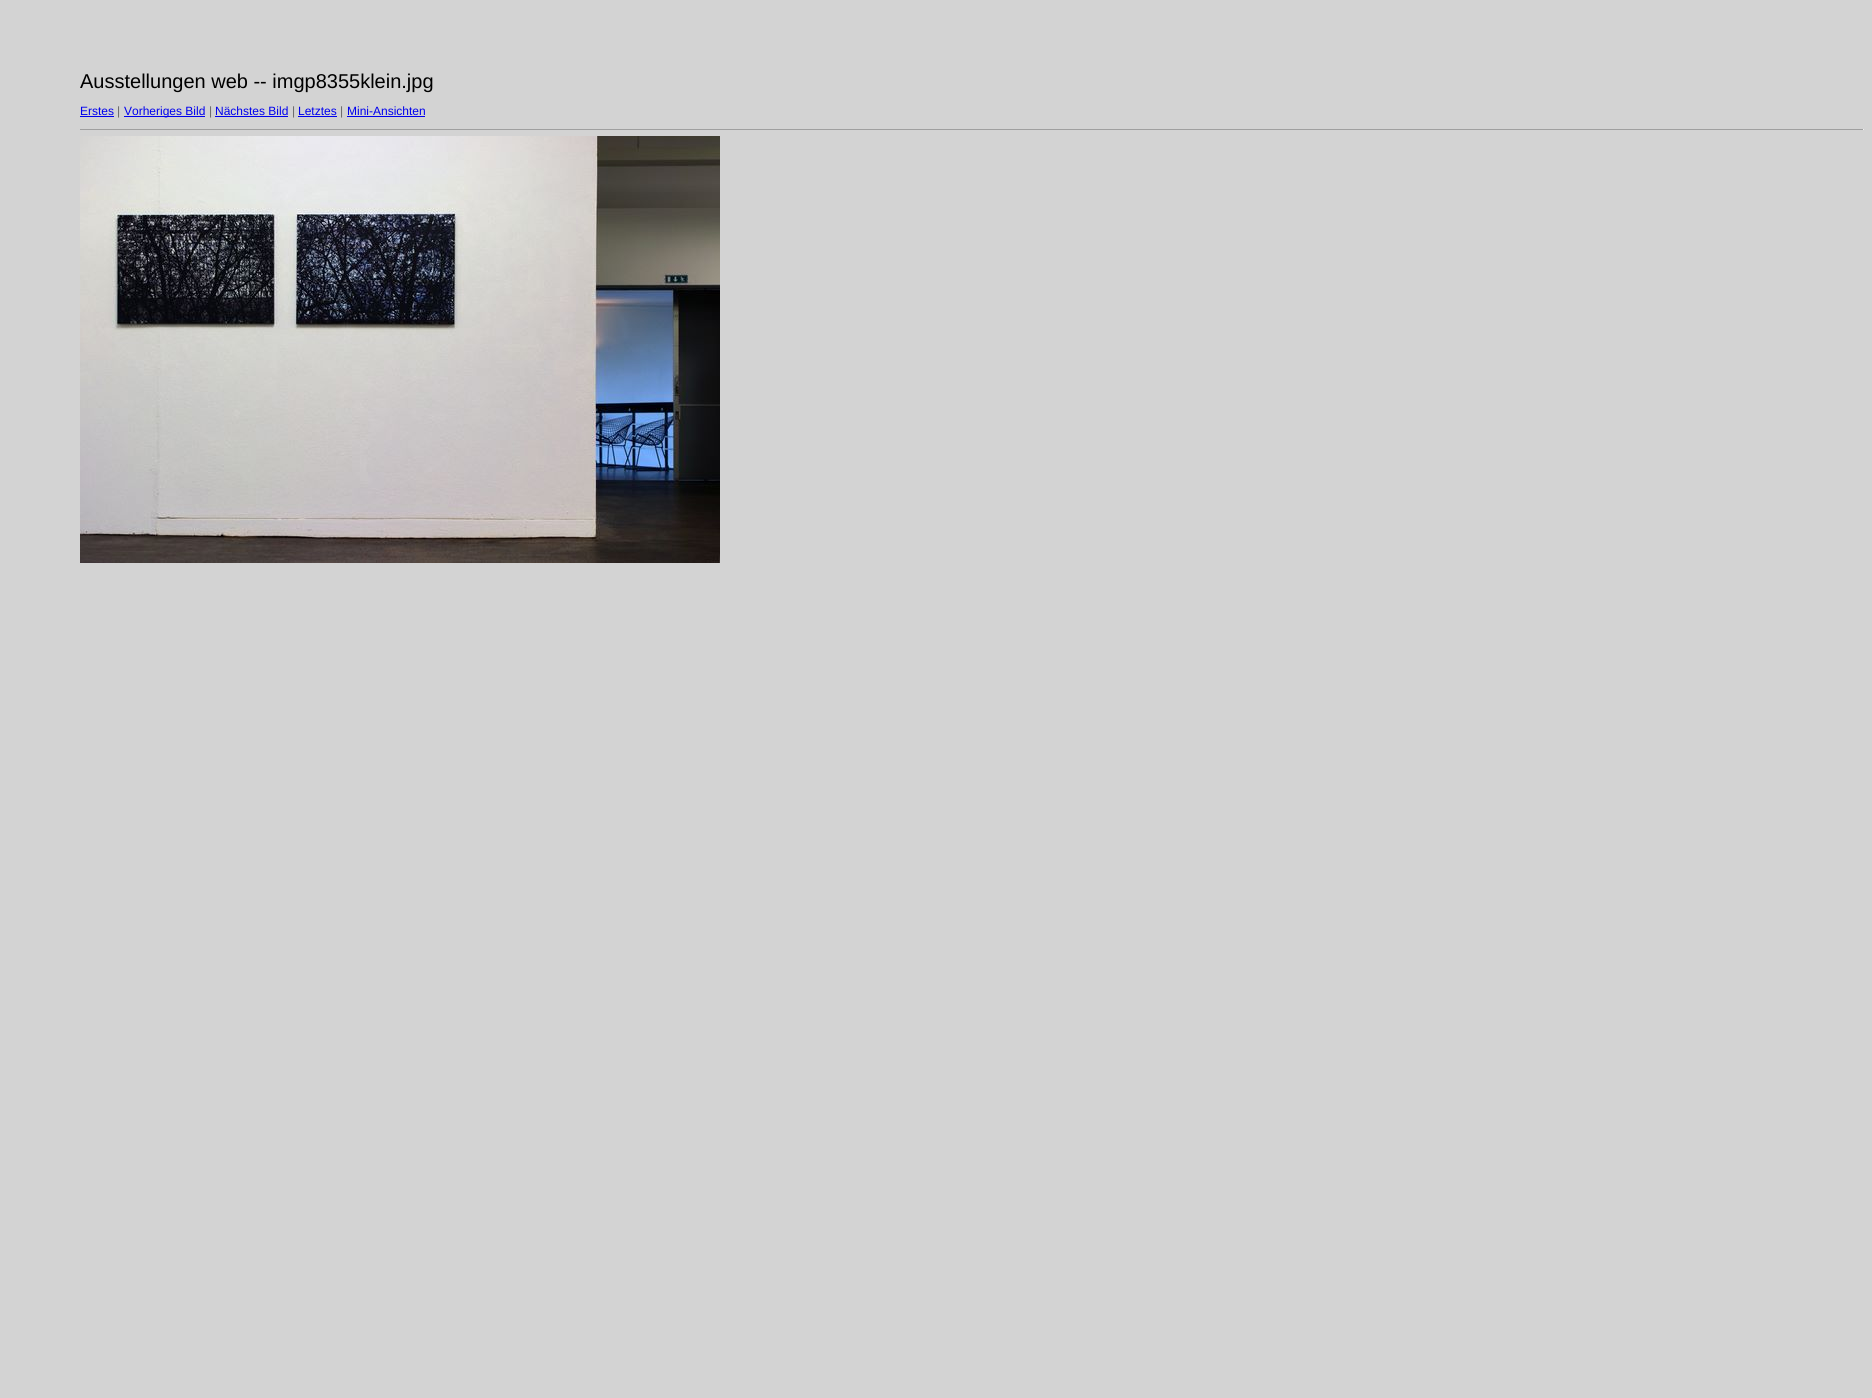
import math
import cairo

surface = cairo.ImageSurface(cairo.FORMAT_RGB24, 1872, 1398)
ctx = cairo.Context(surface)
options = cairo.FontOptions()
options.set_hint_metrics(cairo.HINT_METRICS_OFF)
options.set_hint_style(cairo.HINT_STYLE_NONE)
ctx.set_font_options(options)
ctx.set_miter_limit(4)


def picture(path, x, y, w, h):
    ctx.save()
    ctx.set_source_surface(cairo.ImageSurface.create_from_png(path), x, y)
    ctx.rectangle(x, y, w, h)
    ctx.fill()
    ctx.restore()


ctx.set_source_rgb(0.827, 0.827, 0.827)
ctx.paint()
ctx.select_font_face("Liberation Sans")
ctx.set_font_size(20)
ctx.set_source_rgb(0, 0, 0)
ctx.move_to(80, 88)
ctx.show_text("Ausstellungen web -- imgp8355klein.jpg")
ctx.set_font_size(12)
ctx.set_source_rgb(0, 0, 0.933)
ctx.move_to(80, 115)
ctx.show_text("Erstes")
ctx.rectangle(80, 116, 34, 1)
ctx.fill()
ctx.set_source_rgb(0.4, 0.4, 0.4)
ctx.move_to(117, 115)
ctx.show_text("|")
ctx.set_source_rgb(0, 0, 0.933)
ctx.rectangle(124, 116, 81, 1)
ctx.fill()
ctx.move_to(124, 115)
ctx.show_text("Vorheriges Bild")
ctx.set_source_rgb(0.4, 0.4, 0.4)
ctx.move_to(209, 115)
ctx.show_text("|")
ctx.set_source_rgb(0, 0, 0.933)
ctx.move_to(215, 115)
ctx.show_text("Nächstes Bild")
ctx.rectangle(215, 116, 73, 1)
ctx.fill()
ctx.set_source_rgb(0.4, 0.4, 0.4)
ctx.move_to(292, 115)
ctx.show_text("|")
ctx.set_source_rgb(0, 0, 0.933)
ctx.move_to(298, 115)
ctx.show_text("Letztes")
ctx.rectangle(298, 116, 39, 1)
ctx.fill()
ctx.set_source_rgb(0.4, 0.4, 0.4)
ctx.move_to(340, 115)
ctx.show_text("|")
ctx.set_source_rgb(0, 0, 0.933)
ctx.move_to(347, 115)
ctx.show_text("Mini-Ansichten")
ctx.rectangle(347, 116, 78, 1)
ctx.fill()
ctx.set_source_rgb(0.624, 0.624, 0.624)
ctx.rectangle(80, 129, 1784, 1)
ctx.fill()
ctx.set_source_rgb(0.933, 0.933, 0.933)
ctx.rectangle(1863, 129, 1, 1)
ctx.fill()
picture("img1.png", 80, 136, 640, 427)
surface.write_to_png("page.png")
